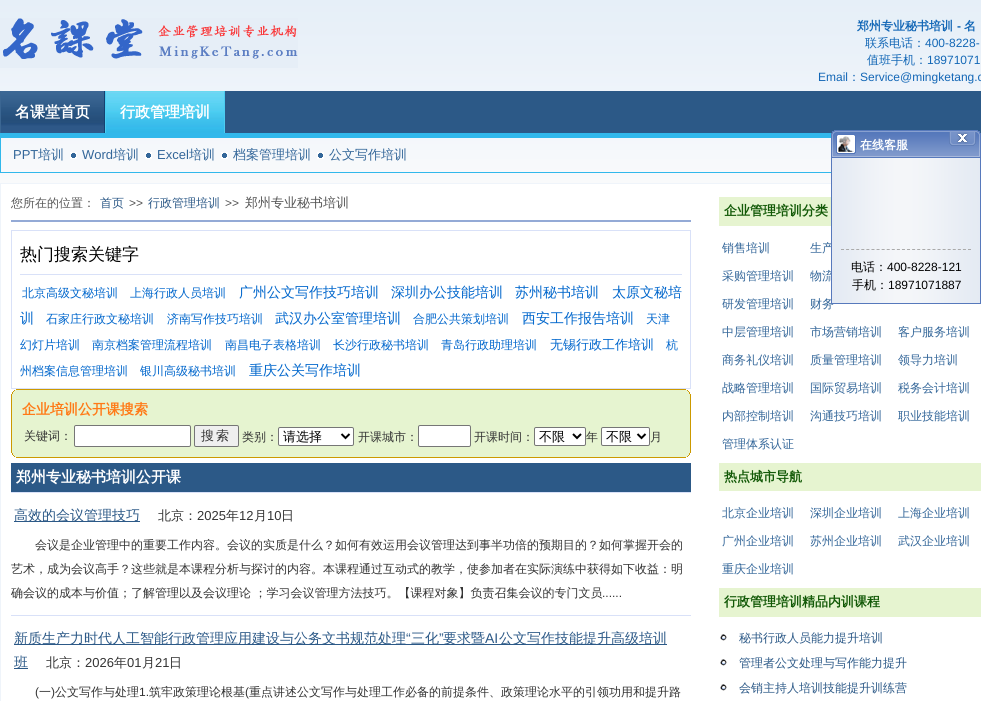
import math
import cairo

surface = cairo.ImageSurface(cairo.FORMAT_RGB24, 981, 701)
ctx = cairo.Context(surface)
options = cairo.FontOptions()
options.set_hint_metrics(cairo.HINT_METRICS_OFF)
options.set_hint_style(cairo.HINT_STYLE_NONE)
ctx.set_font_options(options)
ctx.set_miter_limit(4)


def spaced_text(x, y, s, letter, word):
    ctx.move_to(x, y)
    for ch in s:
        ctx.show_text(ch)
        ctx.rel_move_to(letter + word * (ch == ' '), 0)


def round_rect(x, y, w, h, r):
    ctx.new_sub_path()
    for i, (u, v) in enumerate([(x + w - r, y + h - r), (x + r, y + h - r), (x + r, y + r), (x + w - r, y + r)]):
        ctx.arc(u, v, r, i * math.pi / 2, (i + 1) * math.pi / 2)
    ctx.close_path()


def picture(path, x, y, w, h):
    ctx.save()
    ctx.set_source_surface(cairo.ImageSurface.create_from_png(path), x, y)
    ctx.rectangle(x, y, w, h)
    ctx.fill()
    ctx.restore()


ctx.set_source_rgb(1, 1, 1)
ctx.paint()
picture("img1.png", 0, 0, 981, 183)
picture("img2.png", 0, 18, 298, 50)
ctx.select_font_face("WenQuanYi Zen Hei", cairo.FONT_SLANT_NORMAL, cairo.FONT_WEIGHT_BOLD)
ctx.set_font_size(12)
ctx.set_source_rgb(0.078, 0.404, 0.714)
ctx.move_to(857, 30)
ctx.show_text("郑州专业秘书培训")
ctx.select_font_face("Liberation Sans", cairo.FONT_SLANT_NORMAL, cairo.FONT_WEIGHT_BOLD)
ctx.move_to(957, 30)
ctx.show_text("-")
ctx.select_font_face("WenQuanYi Zen Hei", cairo.FONT_SLANT_NORMAL, cairo.FONT_WEIGHT_BOLD)
ctx.move_to(964, 30)
ctx.show_text("名")
ctx.select_font_face("WenQuanYi Zen Hei Medium")
ctx.move_to(865, 47)
ctx.show_text("联系电话：")
ctx.select_font_face("Liberation Sans")
ctx.move_to(925, 47)
ctx.show_text("400-8228-")
ctx.select_font_face("WenQuanYi Zen Hei Medium")
ctx.move_to(867, 64)
ctx.show_text("值班手机：")
ctx.select_font_face("Liberation Sans")
ctx.move_to(927, 64)
ctx.show_text("18971071")
ctx.move_to(818, 81)
ctx.show_text("Email")
ctx.select_font_face("WenQuanYi Zen Hei Medium")
ctx.move_to(848, 81)
ctx.show_text("：")
ctx.select_font_face("Liberation Sans")
ctx.move_to(860, 81)
ctx.show_text("Service@mingketang.c")
ctx.set_source_rgb(0.173, 0.349, 0.529)
ctx.rectangle(225, 91, 756, 42)
ctx.fill()
picture("img3.png", 1, 91, 103, 42)
ctx.set_source_rgb(0.082, 0.255, 0.435)
ctx.rectangle(104, 91, 1, 42)
ctx.fill()
ctx.set_source_rgb(0.231, 0.4, 0.573)
ctx.rectangle(0, 91, 1, 42)
ctx.fill()
ctx.select_font_face("WenQuanYi Zen Hei", cairo.FONT_SLANT_NORMAL, cairo.FONT_WEIGHT_BOLD)
ctx.set_font_size(15)
ctx.set_source_rgb(1, 1, 1)
ctx.move_to(15, 117)
ctx.show_text("名课堂首页")
picture("img4.png", 106, 91, 118, 42)
ctx.set_source_rgb(0.298, 0.8, 0.945)
ctx.rectangle(224, 91, 1, 42)
ctx.fill()
ctx.rectangle(105, 91, 1, 42)
ctx.fill()
ctx.set_source_rgb(1, 1, 1)
ctx.move_to(120, 117)
ctx.show_text("行政管理培训")
ctx.set_source_rgb(0.192, 0.722, 0.918)
ctx.rectangle(0, 133, 831, 5)
ctx.fill()
ctx.rectangle(0, 172, 831, 1)
ctx.fill()
ctx.rectangle(0, 133, 1, 40)
ctx.fill()
ctx.select_font_face("Liberation Sans")
ctx.set_font_size(13)
ctx.set_source_rgb(0.2, 0.4, 0.6)
ctx.move_to(13, 159)
ctx.show_text("PPT")
ctx.select_font_face("WenQuanYi Zen Hei Medium")
ctx.move_to(38, 159)
ctx.show_text("培训")
picture("img5.png", 70, 152, 7, 7)
ctx.select_font_face("Liberation Sans")
ctx.move_to(82, 159)
ctx.show_text("Word")
ctx.select_font_face("WenQuanYi Zen Hei Medium")
ctx.move_to(113, 159)
ctx.show_text("培训")
picture("img5.png", 145, 152, 7, 7)
ctx.select_font_face("Liberation Sans")
ctx.move_to(157, 159)
ctx.show_text("Excel")
ctx.select_font_face("WenQuanYi Zen Hei Medium")
ctx.move_to(189, 159)
ctx.show_text("培训")
picture("img5.png", 221, 152, 7, 7)
ctx.move_to(233, 159)
ctx.show_text("档案管理培训")
picture("img5.png", 317, 152, 7, 7)
ctx.move_to(329, 159)
ctx.show_text("公文写作培训")
picture("img6.png", 831, 130, 25, 27)
picture("img7.png", 856, 130, 93, 27)
ctx.select_font_face("WenQuanYi Zen Hei", cairo.FONT_SLANT_NORMAL, cairo.FONT_WEIGHT_BOLD)
ctx.set_font_size(12)
ctx.set_source_rgb(1, 1, 1)
ctx.move_to(860, 149)
ctx.show_text("在线客服")
picture("img8.png", 949, 130, 32, 27)
picture("img9.png", 949, 132, 27, 14)
ctx.select_font_face("WenQuanYi Zen Hei Medium")
ctx.set_source_rgb(0.2, 0.4, 0.6)
ctx.move_to(810, 252)
ctx.show_text("生产")
ctx.move_to(810, 280)
ctx.show_text("物流")
ctx.move_to(810, 308)
ctx.show_text("财务")
picture("img10.png", 832, 158, 148, 145)
ctx.rectangle(831.5, 157.5, 149, 146)
ctx.set_source_rgb(0.341, 0.475, 0.737)
ctx.set_line_width(1)
ctx.stroke()
ctx.new_path()
ctx.move_to(841, 249.5)
ctx.line_to(971, 249.5)
ctx.set_source_rgb(0.667, 0.667, 0.667)
ctx.set_dash([3, 2.08])
ctx.stroke()
ctx.set_source_rgb(0, 0, 0)
ctx.move_to(851, 271)
ctx.show_text("电话：")
ctx.select_font_face("Liberation Sans")
ctx.move_to(887, 271)
ctx.show_text("400-8228-121")
ctx.select_font_face("WenQuanYi Zen Hei Medium")
ctx.move_to(852, 289)
ctx.show_text("手机：")
ctx.select_font_face("Liberation Sans")
ctx.move_to(888, 289)
ctx.show_text("18971071887")
ctx.set_source_rgb(0.937, 0.957, 0.98)
ctx.rectangle(0, 183, 831, 1)
ctx.fill()
ctx.rectangle(0, 183, 1, 518)
ctx.fill()
ctx.set_source_rgb(0.58, 0.667, 0.839)
ctx.rectangle(11, 220, 680, 2)
ctx.fill()
ctx.select_font_face("WenQuanYi Zen Hei Medium")
ctx.set_source_rgb(0.333, 0.333, 0.333)
ctx.move_to(11, 207)
ctx.show_text("您所在的位置：")
ctx.set_source_rgb(0.173, 0.349, 0.529)
ctx.move_to(100, 207)
ctx.show_text("首页")
ctx.select_font_face("Liberation Sans")
ctx.set_source_rgb(0.333, 0.333, 0.333)
ctx.move_to(129, 207)
ctx.show_text(">>")
ctx.select_font_face("WenQuanYi Zen Hei Medium")
ctx.set_source_rgb(0.173, 0.349, 0.529)
ctx.move_to(148, 207)
ctx.show_text("行政管理培训")
ctx.select_font_face("Liberation Sans")
ctx.set_source_rgb(0.333, 0.333, 0.333)
ctx.move_to(225, 207)
ctx.show_text(">>")
ctx.select_font_face("WenQuanYi Zen Hei Medium")
ctx.set_font_size(13)
ctx.move_to(245, 207)
ctx.show_text("郑州专业秘书培训")
ctx.rectangle(11.5, 230.5, 679, 158)
ctx.set_source_rgb(0.851, 0.882, 0.969)
ctx.set_dash([])
ctx.stroke()
ctx.rectangle(20, 274, 662, 1)
ctx.fill()
ctx.set_font_size(17)
ctx.set_source_rgb(0, 0, 0)
ctx.move_to(20, 260)
ctx.show_text("热门搜索关键字")
ctx.set_font_size(12)
ctx.set_source_rgb(0, 0.4, 0.8)
ctx.move_to(22, 297)
ctx.show_text("北京高级文秘培训")
ctx.move_to(130, 297)
ctx.show_text("上海行政人员培训")
ctx.set_font_size(14)
ctx.move_to(239, 297)
ctx.show_text("广州公文写作技巧培训")
ctx.move_to(391, 297)
ctx.show_text("深圳办公技能培训")
ctx.move_to(515, 297)
ctx.show_text("苏州秘书培训")
ctx.move_to(612, 297)
ctx.show_text("太原文秘培")
ctx.move_to(20, 323)
ctx.show_text("训")
ctx.set_font_size(12)
ctx.move_to(46, 323)
ctx.show_text("石家庄行政文秘培训")
ctx.move_to(167, 323)
ctx.show_text("济南写作技巧培训")
ctx.set_font_size(14)
ctx.move_to(275, 323)
ctx.show_text("武汉办公室管理培训")
ctx.set_font_size(12)
ctx.move_to(413, 323)
ctx.show_text("合肥公共策划培训")
ctx.set_font_size(14)
ctx.move_to(522, 323)
ctx.show_text("西安工作报告培训")
ctx.set_font_size(12)
ctx.move_to(646, 323)
ctx.show_text("天津")
ctx.move_to(20, 349)
ctx.show_text("幻灯片培训")
ctx.move_to(92, 349)
ctx.show_text("南京档案管理流程培训")
ctx.move_to(225, 349)
ctx.show_text("南昌电子表格培训")
ctx.move_to(333, 349)
ctx.show_text("长沙行政秘书培训")
ctx.move_to(441, 349)
ctx.show_text("青岛行政助理培训")
ctx.set_font_size(13)
ctx.move_to(550, 349)
ctx.show_text("无锡行政工作培训")
ctx.set_font_size(12)
ctx.move_to(666, 349)
ctx.show_text("杭")
ctx.move_to(20, 375)
ctx.show_text("州档案信息管理培训")
ctx.move_to(140, 375)
ctx.show_text("银川高级秘书培训")
ctx.set_font_size(14)
ctx.move_to(249, 375)
ctx.show_text("重庆公关写作培训")
ctx.set_source_rgb(0.8, 0.6, 0)
ctx.rectangle(16, 389, 670, 1)
ctx.fill()
ctx.set_source_rgb(0.902, 0.957, 0.816)
ctx.rectangle(14, 390, 674, 1)
ctx.fill()
ctx.set_source_rgb(0.8, 0.6, 0)
ctx.rectangle(687, 390, 1, 1)
ctx.fill()
ctx.rectangle(14, 390, 1, 1)
ctx.fill()
ctx.set_source_rgb(0.902, 0.957, 0.816)
ctx.rectangle(13, 391, 676, 1)
ctx.fill()
ctx.set_source_rgb(0.8, 0.6, 0)
ctx.rectangle(688, 391, 1, 1)
ctx.fill()
ctx.rectangle(13, 391, 1, 1)
ctx.fill()
ctx.set_source_rgb(0.902, 0.957, 0.816)
ctx.rectangle(12, 392, 678, 63)
ctx.fill()
ctx.set_source_rgb(0.8, 0.6, 0)
ctx.rectangle(689, 392, 1, 2)
ctx.fill()
ctx.rectangle(12, 392, 1, 2)
ctx.fill()
ctx.rectangle(690, 394, 1, 59)
ctx.fill()
ctx.rectangle(11, 394, 1, 59)
ctx.fill()
ctx.select_font_face("WenQuanYi Zen Hei", cairo.FONT_SLANT_NORMAL, cairo.FONT_WEIGHT_BOLD)
ctx.set_source_rgb(1, 0.478, 0.09)
ctx.move_to(22, 414)
ctx.show_text("企业培训公开课搜索")
ctx.select_font_face("WenQuanYi Zen Hei Medium")
ctx.set_font_size(12)
ctx.set_source_rgb(0.2, 0.2, 0.2)
ctx.move_to(24, 440)
ctx.show_text("关键词：")
ctx.set_source_rgb(1, 1, 1)
round_rect(74.5, 425.5, 116, 21, 1.5)
ctx.fill_preserve()
ctx.set_source_rgb(0.463, 0.463, 0.463)
ctx.stroke()
ctx.set_source_rgb(0.937, 0.937, 0.937)
round_rect(194.5, 425.5, 44, 21, 1.5)
ctx.fill_preserve()
ctx.set_source_rgb(0.463, 0.463, 0.463)
ctx.stroke()
ctx.set_font_size(13)
ctx.set_source_rgb(0.2, 0.2, 0.2)
spaced_text(201, 440, "搜索", 2, 0)
ctx.set_font_size(12)
ctx.move_to(242, 441)
ctx.show_text("类别：")
ctx.set_source_rgb(1, 1, 1)
round_rect(278.5, 427.5, 75, 18, 1.5)
ctx.fill_preserve()
ctx.set_source_rgb(0.463, 0.463, 0.463)
ctx.stroke()
ctx.new_path()
ctx.move_to(341.5, 434)
ctx.line_to(345.5, 438)
ctx.line_to(349.5, 434)
ctx.set_source_rgb(0, 0, 0)
ctx.set_line_width(2)
ctx.stroke()
ctx.set_font_size(13)
ctx.move_to(283, 441)
ctx.show_text("请选择")
ctx.set_font_size(12)
ctx.set_source_rgb(0.2, 0.2, 0.2)
ctx.move_to(358, 441)
ctx.show_text("开课城市：")
ctx.set_source_rgb(1, 1, 1)
round_rect(418.5, 425.5, 52, 21, 1.5)
ctx.fill_preserve()
ctx.set_source_rgb(0.463, 0.463, 0.463)
ctx.set_line_width(1)
ctx.stroke()
ctx.set_source_rgb(0.2, 0.2, 0.2)
ctx.move_to(474, 441)
ctx.show_text("开课时间：")
ctx.set_source_rgb(1, 1, 1)
round_rect(534.5, 427.5, 51, 18, 1.5)
ctx.fill_preserve()
ctx.set_source_rgb(0.463, 0.463, 0.463)
ctx.stroke()
ctx.new_path()
ctx.move_to(573, 434)
ctx.line_to(577, 438)
ctx.line_to(581, 434)
ctx.set_source_rgb(0, 0, 0)
ctx.set_line_width(2)
ctx.stroke()
ctx.set_font_size(13)
ctx.move_to(539, 441)
ctx.show_text("不限")
ctx.set_font_size(12)
ctx.set_source_rgb(0.2, 0.2, 0.2)
ctx.move_to(586, 441)
ctx.show_text("年")
ctx.set_source_rgb(1, 1, 1)
round_rect(601.5, 427.5, 48, 18, 1.5)
ctx.fill_preserve()
ctx.set_source_rgb(0.463, 0.463, 0.463)
ctx.set_line_width(1)
ctx.stroke()
ctx.new_path()
ctx.move_to(637.5, 434)
ctx.line_to(641.5, 438)
ctx.line_to(645.5, 434)
ctx.set_source_rgb(0, 0, 0)
ctx.set_line_width(2)
ctx.stroke()
ctx.set_font_size(13)
ctx.move_to(606, 441)
ctx.show_text("不限")
ctx.set_font_size(12)
ctx.set_source_rgb(0.2, 0.2, 0.2)
ctx.move_to(650, 441)
ctx.show_text("月")
ctx.set_source_rgb(0.8, 0.6, 0)
ctx.rectangle(689, 453, 1, 2)
ctx.fill()
ctx.rectangle(12, 453, 1, 2)
ctx.fill()
ctx.set_source_rgb(0.902, 0.957, 0.816)
ctx.rectangle(13, 455, 676, 1)
ctx.fill()
ctx.set_source_rgb(0.8, 0.6, 0)
ctx.rectangle(688, 455, 1, 1)
ctx.fill()
ctx.rectangle(13, 455, 1, 1)
ctx.fill()
ctx.set_source_rgb(0.902, 0.957, 0.816)
ctx.rectangle(14, 456, 674, 1)
ctx.fill()
ctx.set_source_rgb(0.8, 0.6, 0)
ctx.rectangle(687, 456, 1, 1)
ctx.fill()
ctx.rectangle(14, 456, 1, 1)
ctx.fill()
ctx.rectangle(16, 457, 670, 1)
ctx.fill()
ctx.set_source_rgb(0.173, 0.349, 0.529)
ctx.rectangle(11, 463, 680, 29)
ctx.fill()
ctx.select_font_face("WenQuanYi Zen Hei", cairo.FONT_SLANT_NORMAL, cairo.FONT_WEIGHT_BOLD)
ctx.set_font_size(15)
ctx.set_source_rgb(1, 1, 1)
ctx.move_to(16, 482)
ctx.show_text("郑州专业秘书培训公开课")
ctx.set_source_rgb(0.851, 0.882, 0.969)
ctx.rectangle(11, 492, 680, 1)
ctx.fill()
ctx.set_source_rgb(0.173, 0.349, 0.529)
ctx.rectangle(14, 521, 126, 1)
ctx.fill()
ctx.select_font_face("WenQuanYi Zen Hei Medium")
ctx.set_font_size(14)
ctx.move_to(14, 520)
ctx.show_text("高效的会议管理技巧")
ctx.set_font_size(13)
ctx.set_source_rgb(0.2, 0.2, 0.2)
ctx.move_to(158, 520)
ctx.show_text("北京：")
ctx.select_font_face("Liberation Sans")
ctx.move_to(197, 520)
ctx.show_text("2025")
ctx.select_font_face("WenQuanYi Zen Hei Medium")
ctx.move_to(226, 520)
ctx.show_text("年")
ctx.select_font_face("Liberation Sans")
ctx.move_to(239, 520)
ctx.show_text("12")
ctx.select_font_face("WenQuanYi Zen Hei Medium")
ctx.move_to(254, 520)
ctx.show_text("月")
ctx.select_font_face("Liberation Sans")
ctx.move_to(267, 520)
ctx.show_text("10")
ctx.select_font_face("WenQuanYi Zen Hei Medium")
ctx.move_to(281, 520)
ctx.show_text("日")
ctx.set_font_size(12)
ctx.move_to(35, 549)
ctx.show_text("会议是企业管理中的重要工作内容。会议的实质是什么？如何有效运用会议管理达到事半功倍的预期目的？如何掌握开会的")
ctx.move_to(11, 573)
ctx.show_text("艺术，成为会议高手？这些就是本课程分析与探讨的内容。本课程通过互动式的教学，使参加者在实际演练中获得如下收益：明")
ctx.move_to(11, 597)
ctx.show_text("确会议的成本与价值；了解管理以及会议理论 ；学习会议管理方法技巧。【课程对象】负责召集会议的专门文员")
ctx.select_font_face("Liberation Sans")
ctx.move_to(602, 597)
ctx.show_text("......")
ctx.set_source_rgb(0.851, 0.882, 0.969)
ctx.rectangle(11, 615, 680, 1)
ctx.fill()
ctx.set_source_rgb(0.173, 0.349, 0.529)
ctx.rectangle(14, 644, 653, 1)
ctx.fill()
ctx.select_font_face("WenQuanYi Zen Hei Medium")
ctx.set_font_size(14)
ctx.move_to(14, 643)
ctx.show_text("新质生产力时代人工智能行政管理应用建设与公务文书规范处理")
ctx.select_font_face("Liberation Sans")
ctx.move_to(406, 643)
ctx.show_text("“")
ctx.select_font_face("WenQuanYi Zen Hei Medium")
ctx.move_to(411, 643)
ctx.show_text("三化")
ctx.select_font_face("Liberation Sans")
ctx.move_to(439, 643)
ctx.show_text("”")
ctx.select_font_face("WenQuanYi Zen Hei Medium")
ctx.move_to(443, 643)
ctx.show_text("要求暨")
ctx.select_font_face("Liberation Sans")
ctx.move_to(485, 643)
ctx.show_text("AI")
ctx.select_font_face("WenQuanYi Zen Hei Medium")
ctx.move_to(499, 643)
ctx.show_text("公文写作技能提升高级培训")
ctx.rectangle(14, 668, 14, 1)
ctx.fill()
ctx.move_to(14, 667)
ctx.show_text("班")
ctx.set_font_size(13)
ctx.set_source_rgb(0.2, 0.2, 0.2)
ctx.move_to(46, 667)
ctx.show_text("北京：")
ctx.select_font_face("Liberation Sans")
ctx.move_to(85, 667)
ctx.show_text("2026")
ctx.select_font_face("WenQuanYi Zen Hei Medium")
ctx.move_to(114, 667)
ctx.show_text("年")
ctx.select_font_face("Liberation Sans")
ctx.move_to(127, 667)
ctx.show_text("01")
ctx.select_font_face("WenQuanYi Zen Hei Medium")
ctx.move_to(142, 667)
ctx.show_text("月")
ctx.select_font_face("Liberation Sans")
ctx.move_to(155, 667)
ctx.show_text("21")
ctx.select_font_face("WenQuanYi Zen Hei Medium")
ctx.move_to(169, 667)
ctx.show_text("日")
ctx.select_font_face("Liberation Sans")
ctx.set_font_size(12)
ctx.move_to(35, 696)
ctx.show_text("(")
ctx.select_font_face("WenQuanYi Zen Hei Medium")
ctx.move_to(39, 696)
ctx.show_text("一")
ctx.select_font_face("Liberation Sans")
ctx.move_to(51, 696)
ctx.show_text(")")
ctx.select_font_face("WenQuanYi Zen Hei Medium")
ctx.move_to(55, 696)
ctx.show_text("公文写作与处理")
ctx.select_font_face("Liberation Sans")
ctx.move_to(139, 696)
ctx.show_text("1.")
ctx.select_font_face("WenQuanYi Zen Hei Medium")
ctx.move_to(149, 696)
ctx.show_text("筑牢政策理论根基")
ctx.select_font_face("Liberation Sans")
ctx.move_to(245, 696)
ctx.show_text("(")
ctx.select_font_face("WenQuanYi Zen Hei Medium")
ctx.move_to(249, 696)
ctx.show_text("重点讲述公文写作与处理工作必备的前提条件、政策理论水平的引领功用和提升路")
ctx.set_source_rgb(0.902, 0.957, 0.816)
ctx.rectangle(719, 197, 112, 29)
ctx.fill()
ctx.select_font_face("WenQuanYi Zen Hei", cairo.FONT_SLANT_NORMAL, cairo.FONT_WEIGHT_BOLD)
ctx.set_font_size(13)
ctx.set_source_rgb(0.071, 0.349, 0.031)
ctx.move_to(724, 215)
ctx.show_text("企业管理培训分类")
ctx.select_font_face("WenQuanYi Zen Hei Medium")
ctx.set_font_size(12)
ctx.set_source_rgb(0.2, 0.4, 0.6)
ctx.move_to(722, 252)
ctx.show_text("销售培训")
ctx.move_to(722, 280)
ctx.show_text("采购管理培训")
ctx.move_to(722, 308)
ctx.show_text("研发管理培训")
ctx.move_to(722, 336)
ctx.show_text("中层管理培训")
ctx.move_to(810, 336)
ctx.show_text("市场营销培训")
ctx.move_to(898, 336)
ctx.show_text("客户服务培训")
ctx.move_to(722, 364)
ctx.show_text("商务礼仪培训")
ctx.move_to(810, 364)
ctx.show_text("质量管理培训")
ctx.move_to(898, 364)
ctx.show_text("领导力培训")
ctx.move_to(722, 392)
ctx.show_text("战略管理培训")
ctx.move_to(810, 392)
ctx.show_text("国际贸易培训")
ctx.move_to(898, 392)
ctx.show_text("税务会计培训")
ctx.move_to(722, 420)
ctx.show_text("内部控制培训")
ctx.move_to(810, 420)
ctx.show_text("沟通技巧培训")
ctx.move_to(898, 420)
ctx.show_text("职业技能培训")
ctx.move_to(722, 448)
ctx.show_text("管理体系认证")
ctx.set_source_rgb(0.902, 0.957, 0.816)
ctx.rectangle(719, 463, 262, 28)
ctx.fill()
ctx.select_font_face("WenQuanYi Zen Hei", cairo.FONT_SLANT_NORMAL, cairo.FONT_WEIGHT_BOLD)
ctx.set_font_size(13)
ctx.set_source_rgb(0.071, 0.349, 0.031)
ctx.move_to(724, 481)
ctx.show_text("热点城市导航")
ctx.select_font_face("WenQuanYi Zen Hei Medium")
ctx.set_font_size(12)
ctx.set_source_rgb(0.2, 0.4, 0.6)
ctx.move_to(722, 517)
ctx.show_text("北京企业培训")
ctx.move_to(810, 517)
ctx.show_text("深圳企业培训")
ctx.move_to(898, 517)
ctx.show_text("上海企业培训")
ctx.move_to(722, 545)
ctx.show_text("广州企业培训")
ctx.move_to(810, 545)
ctx.show_text("苏州企业培训")
ctx.move_to(898, 545)
ctx.show_text("武汉企业培训")
ctx.move_to(722, 573)
ctx.show_text("重庆企业培训")
ctx.set_source_rgb(0.902, 0.957, 0.816)
ctx.rectangle(719, 588, 262, 29)
ctx.fill()
ctx.select_font_face("WenQuanYi Zen Hei", cairo.FONT_SLANT_NORMAL, cairo.FONT_WEIGHT_BOLD)
ctx.set_font_size(13)
ctx.set_source_rgb(0.071, 0.349, 0.031)
ctx.move_to(724, 606)
ctx.show_text("行政管理培训精品内训课程")
picture("img11.png", 720, 634, 7, 7)
ctx.select_font_face("WenQuanYi Zen Hei Medium")
ctx.set_font_size(12)
ctx.set_source_rgb(0.173, 0.349, 0.529)
ctx.move_to(739, 642)
ctx.show_text("秘书行政人员能力提升培训")
picture("img11.png", 720, 659, 7, 7)
ctx.move_to(739, 667)
ctx.show_text("管理者公文处理与写作能力提升")
picture("img11.png", 720, 684, 7, 7)
ctx.move_to(739, 692)
ctx.show_text("会销主持人培训技能提升训练营")
surface.write_to_png("page.png")
